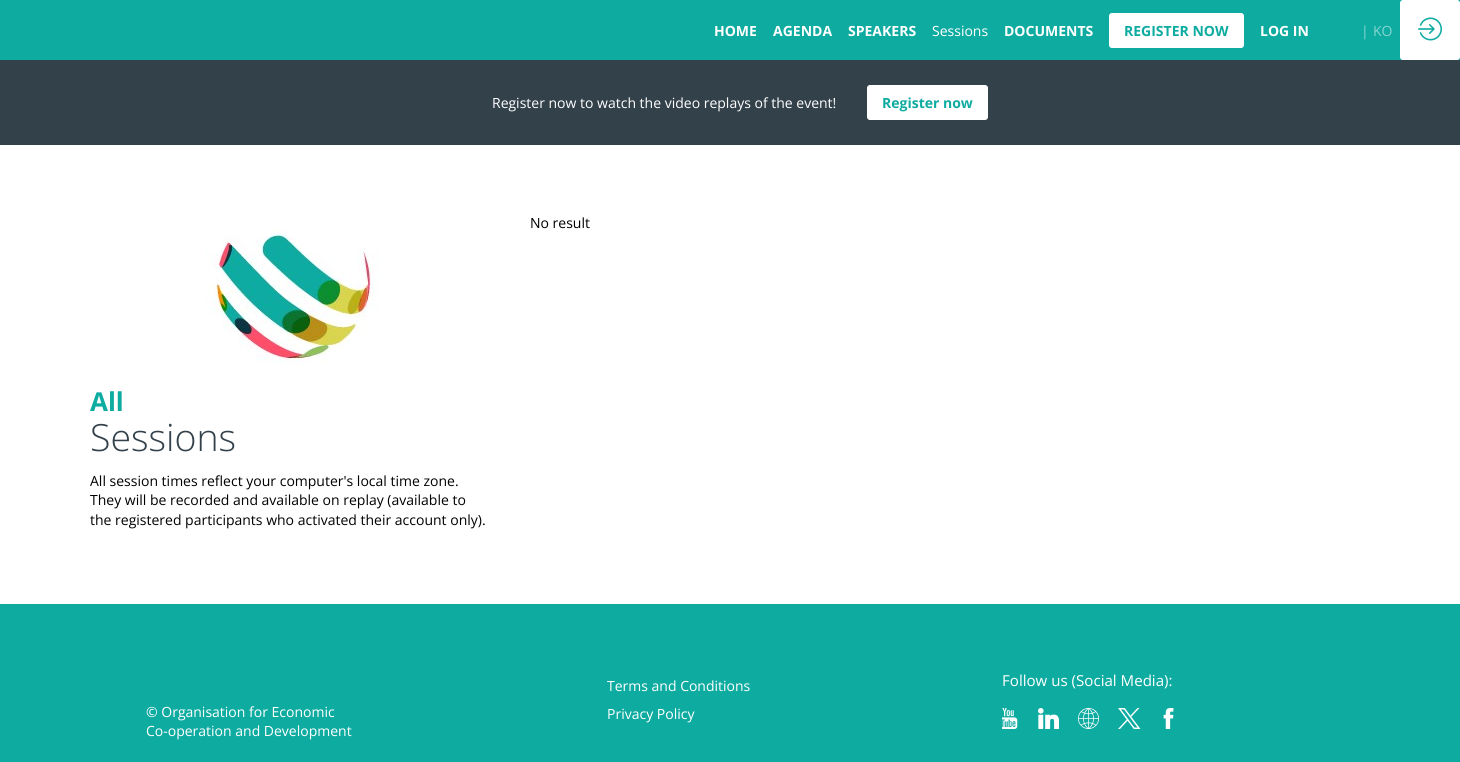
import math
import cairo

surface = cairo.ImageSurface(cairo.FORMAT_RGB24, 1460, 762)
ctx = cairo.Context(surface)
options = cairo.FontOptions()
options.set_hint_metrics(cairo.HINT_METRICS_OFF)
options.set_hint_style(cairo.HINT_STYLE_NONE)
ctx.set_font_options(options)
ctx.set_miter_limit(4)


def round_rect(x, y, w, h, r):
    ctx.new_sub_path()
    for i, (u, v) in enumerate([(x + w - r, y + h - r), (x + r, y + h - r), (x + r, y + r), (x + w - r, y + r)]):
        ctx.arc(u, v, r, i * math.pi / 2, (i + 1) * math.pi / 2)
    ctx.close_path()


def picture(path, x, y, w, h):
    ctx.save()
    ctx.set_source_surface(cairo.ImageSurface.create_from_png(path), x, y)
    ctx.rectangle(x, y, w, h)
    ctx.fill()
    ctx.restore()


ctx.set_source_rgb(0.055, 0.671, 0.631)
ctx.paint()
ctx.select_font_face("Open Sans", cairo.FONT_SLANT_NORMAL, cairo.FONT_WEIGHT_BOLD)
ctx.set_font_size(14)
ctx.set_source_rgb(1, 1, 1)
ctx.move_to(714, 36)
ctx.show_text("HOME")
ctx.move_to(773, 36)
ctx.show_text("AGENDA")
ctx.move_to(848, 36)
ctx.show_text("SPEAKERS")
ctx.select_font_face("Open Sans")
ctx.move_to(932, 36)
ctx.show_text("Sessions")
ctx.select_font_face("Open Sans", cairo.FONT_SLANT_NORMAL, cairo.FONT_WEIGHT_BOLD)
ctx.move_to(1004, 36)
ctx.show_text("DOCUMENTS")
round_rect(1109.5, 13.5, 134, 34, 2.5)
ctx.fill_preserve()
ctx.set_line_width(1)
ctx.stroke()
ctx.set_source_rgb(0.055, 0.671, 0.631)
ctx.move_to(1124, 36)
ctx.show_text("REGISTER NOW")
ctx.set_source_rgb(1, 1, 1)
ctx.move_to(1260, 36)
ctx.show_text("LOG IN")
ctx.select_font_face("Open Sans")
ctx.set_source_rgb(0.529, 0.835, 0.816)
ctx.move_to(1361, 36)
ctx.show_text("|")
ctx.move_to(1373, 36)
ctx.show_text("KO")
ctx.set_source_rgb(1, 1, 1)
round_rect(1400.5, 0.5, 59, 59, 2.5)
ctx.fill_preserve()
ctx.stroke()
picture("img1.png", 1418, 17, 24, 24)
ctx.set_source_rgb(0.2, 0.255, 0.294)
ctx.rectangle(0, 60, 1460, 85)
ctx.fill()
ctx.set_source_rgb(1, 1, 1)
ctx.move_to(492, 108)
ctx.show_text("Register now to watch the video replays of the event!")
round_rect(867.5, 85.5, 120, 34, 2.5)
ctx.fill_preserve()
ctx.stroke()
ctx.select_font_face("Open Sans", cairo.FONT_SLANT_NORMAL, cairo.FONT_WEIGHT_BOLD)
ctx.set_source_rgb(0.055, 0.671, 0.631)
ctx.move_to(882, 108)
ctx.show_text("Register now")
ctx.set_source_rgb(1, 1, 1)
ctx.rectangle(0, 145, 1460, 459)
ctx.fill()
ctx.select_font_face("Open Sans")
ctx.set_source_rgb(0, 0, 0)
ctx.move_to(530, 228)
ctx.show_text("No result")
picture("img2.png", 206, 229, 174, 136)
ctx.select_font_face("Open Sans", cairo.FONT_SLANT_NORMAL, cairo.FONT_WEIGHT_BOLD)
ctx.set_font_size(26)
ctx.set_source_rgb(0.055, 0.671, 0.631)
ctx.move_to(90, 411)
ctx.show_text("All")
ctx.select_font_face("Open Sans Light")
ctx.set_font_size(37.5)
ctx.set_source_rgb(0.2, 0.255, 0.294)
ctx.move_to(90, 451)
ctx.show_text("Sessions")
ctx.select_font_face("Open Sans")
ctx.set_font_size(14)
ctx.set_source_rgb(0, 0, 0)
ctx.move_to(90, 486)
ctx.show_text("All session times reflect your computer's local time zone.")
ctx.move_to(90, 505)
ctx.show_text("They will be recorded and available on replay (available to")
ctx.move_to(90, 525)
ctx.show_text("the registered participants who activated their account only).")
ctx.set_source_rgb(1, 1, 1)
ctx.move_to(146, 717)
ctx.show_text("© Organisation for Economic")
ctx.move_to(146, 736)
ctx.show_text("Co-operation and Development")
ctx.move_to(607, 691)
ctx.show_text("Terms and Conditions")
ctx.move_to(607, 719)
ctx.show_text("Privacy Policy")
ctx.set_font_size(15.1)
ctx.move_to(1002, 686)
ctx.show_text("Follow us (Social Media):")
picture("img3.png", 1002, 708, 16, 21)
picture("img4.png", 1038, 708, 21, 21)
picture("img5.png", 1078, 708, 21, 21)
picture("img6.png", 1118, 708, 23, 21)
picture("img7.png", 1163, 708, 11, 21)
surface.write_to_png("page.png")
